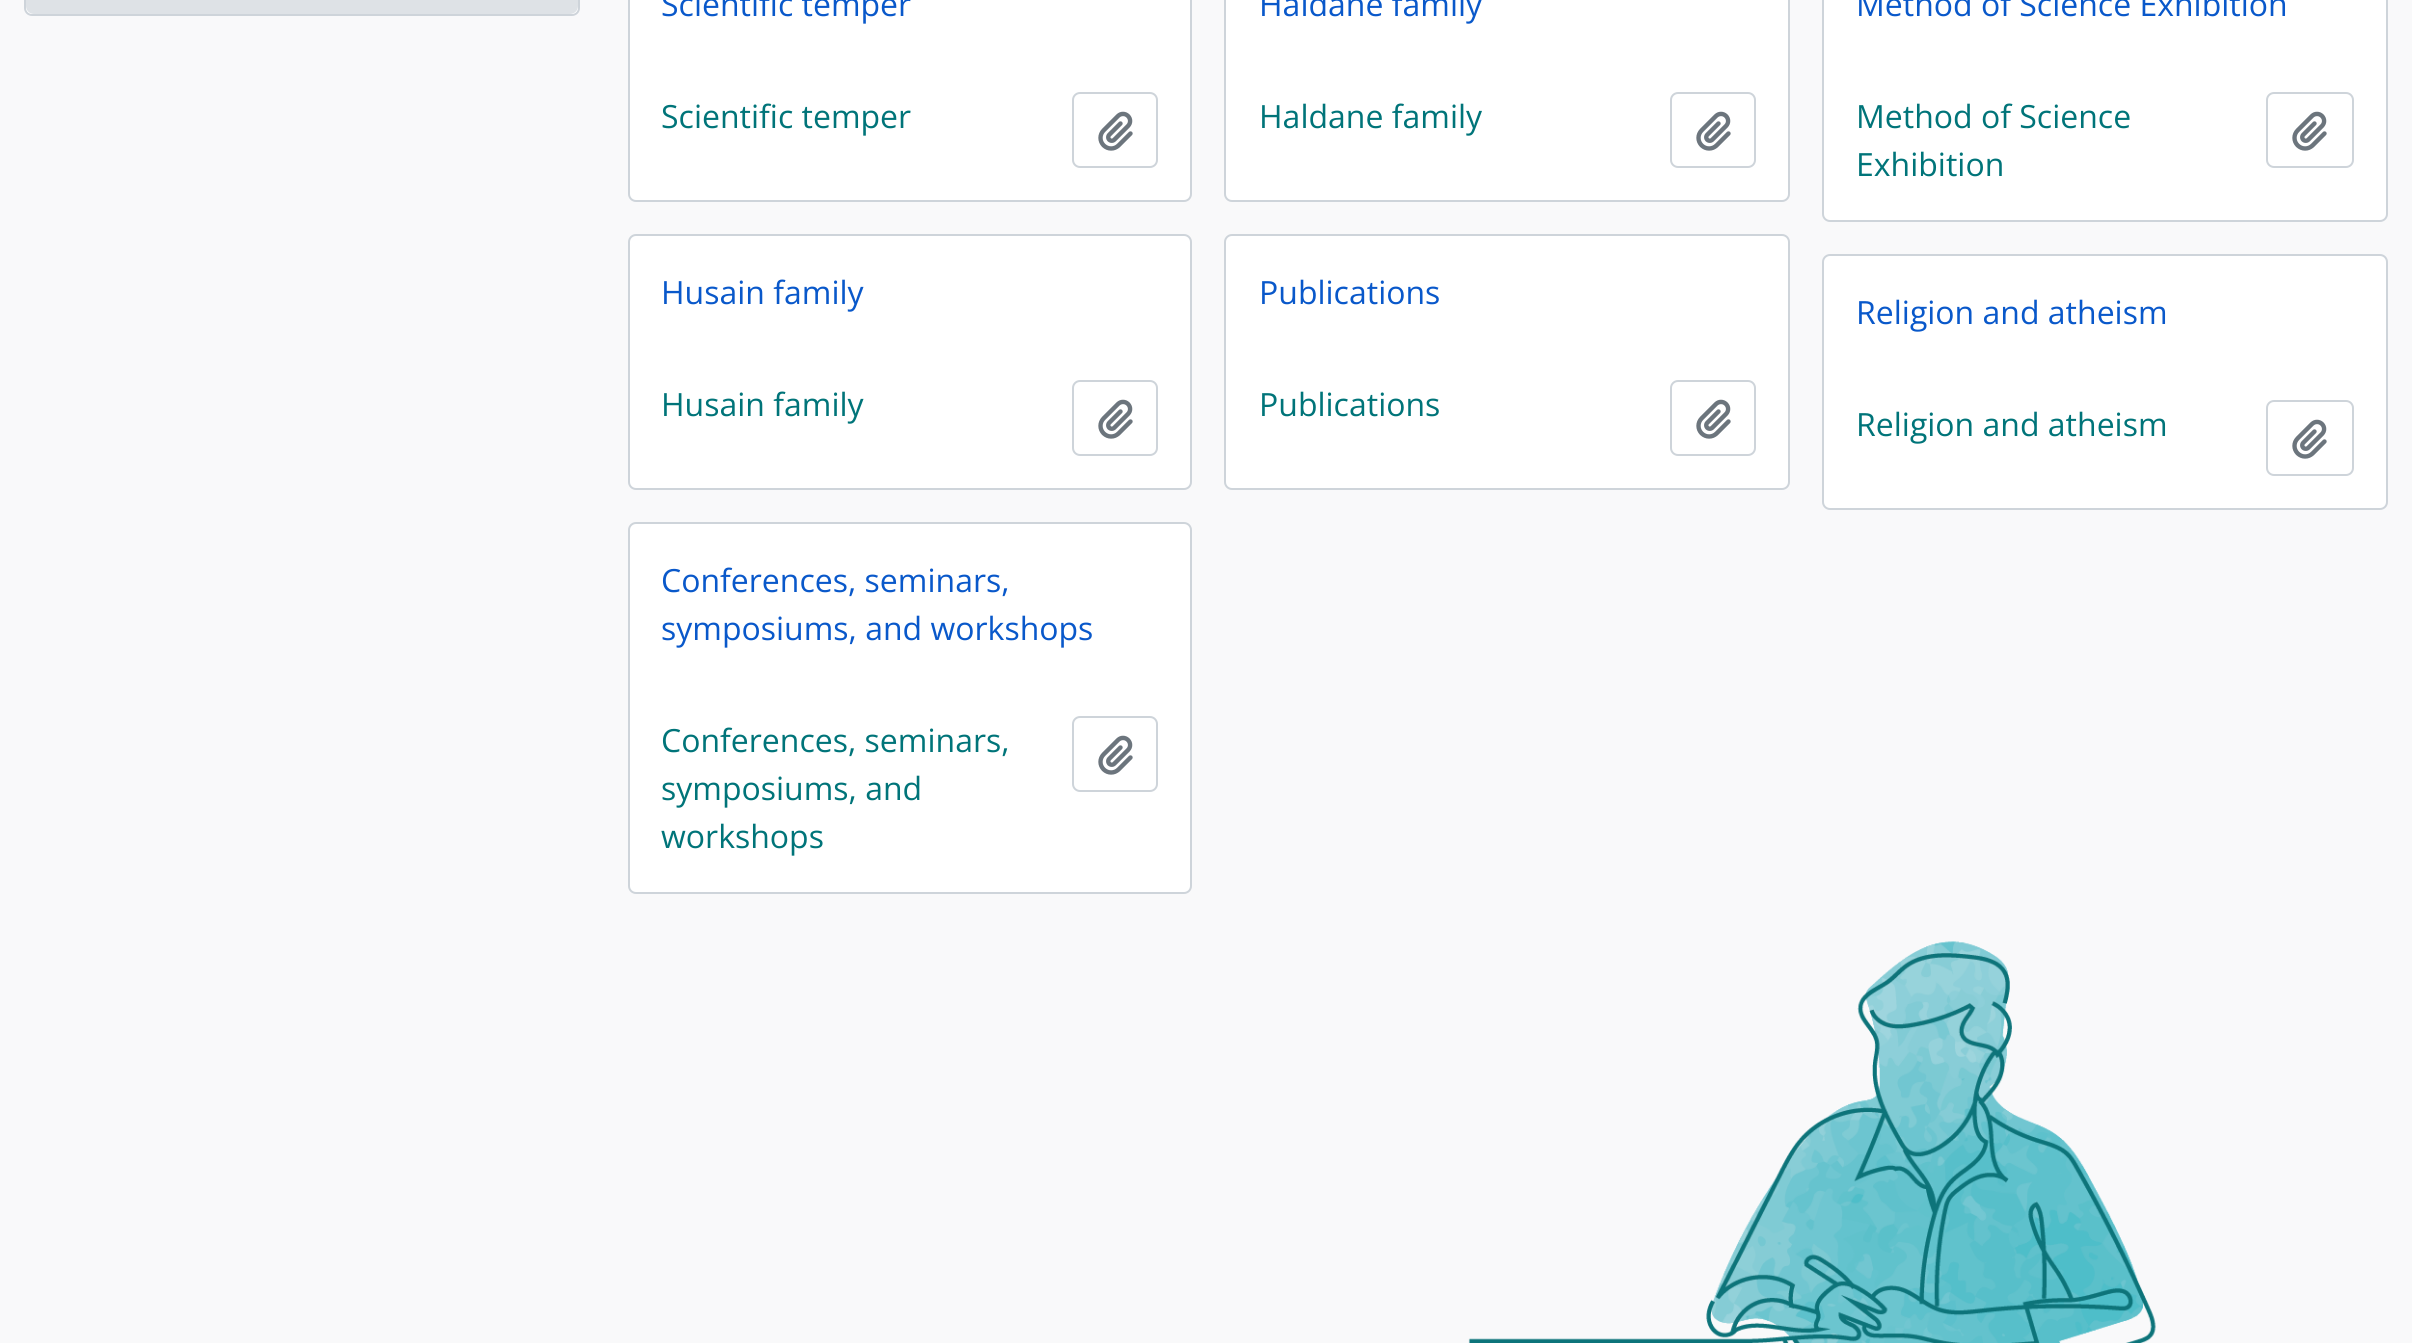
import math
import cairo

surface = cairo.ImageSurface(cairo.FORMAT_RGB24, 2412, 1343)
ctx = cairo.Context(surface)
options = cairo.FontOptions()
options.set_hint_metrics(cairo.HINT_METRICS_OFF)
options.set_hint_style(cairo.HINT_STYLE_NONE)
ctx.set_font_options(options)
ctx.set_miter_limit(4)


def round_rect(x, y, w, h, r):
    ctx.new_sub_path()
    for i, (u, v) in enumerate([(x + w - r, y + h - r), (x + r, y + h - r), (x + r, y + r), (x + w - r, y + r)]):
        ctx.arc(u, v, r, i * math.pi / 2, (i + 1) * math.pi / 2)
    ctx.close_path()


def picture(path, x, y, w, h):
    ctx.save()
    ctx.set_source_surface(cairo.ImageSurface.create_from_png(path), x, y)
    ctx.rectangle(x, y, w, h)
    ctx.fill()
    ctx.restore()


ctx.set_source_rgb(0.973, 0.976, 0.98)
ctx.paint()
ctx.set_source_rgb(1, 1, 1)
round_rect(25, -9, 554, 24, 7)
ctx.fill_preserve()
ctx.set_source_rgb(0.808, 0.831, 0.855)
ctx.stroke()
ctx.set_source_rgb(0.871, 0.886, 0.902)
ctx.new_path()
ctx.move_to(26, -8)
ctx.line_to(578, -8)
ctx.line_to(578, 6)
ctx.curve_to(578, 10.5, 574.5, 14, 570, 14)
ctx.line_to(34, 14)
ctx.curve_to(29.5, 14, 26, 10.5, 26, 6)
ctx.close_path()
ctx.fill()
ctx.set_source_rgb(1, 1, 1)
round_rect(629, -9, 562, 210, 7)
ctx.fill_preserve()
ctx.set_source_rgb(0.808, 0.831, 0.855)
ctx.stroke()
ctx.select_font_face("Open Sans")
ctx.set_font_size(32)
ctx.set_source_rgb(0.039, 0.345, 0.792)
ctx.move_to(661, 16)
ctx.show_text("Scientific temper")
ctx.set_source_rgb(0, 0.455, 0.475)
ctx.move_to(661, 128)
ctx.show_text("Scientific temper")
round_rect(1073, 93, 84, 74, 7)
ctx.set_source_rgb(0.808, 0.831, 0.855)
ctx.stroke()
picture("img1.png", 1098, 111, 35, 40)
ctx.set_source_rgb(1, 1, 1)
round_rect(1225, -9, 564, 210, 7)
ctx.fill_preserve()
ctx.set_source_rgb(0.808, 0.831, 0.855)
ctx.stroke()
ctx.set_source_rgb(0.039, 0.345, 0.792)
ctx.move_to(1259, 16)
ctx.show_text("Haldane family")
ctx.set_source_rgb(0, 0.455, 0.475)
ctx.move_to(1259, 128)
ctx.show_text("Haldane family")
round_rect(1671, 93, 84, 74, 7)
ctx.set_source_rgb(0.808, 0.831, 0.855)
ctx.stroke()
picture("img1.png", 1696, 111, 35, 40)
ctx.set_source_rgb(1, 1, 1)
round_rect(1823, -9, 564, 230, 7)
ctx.fill_preserve()
ctx.set_source_rgb(0.808, 0.831, 0.855)
ctx.stroke()
ctx.set_source_rgb(0.039, 0.345, 0.792)
ctx.move_to(1856, 16)
ctx.show_text("Method of Science Exhibition")
ctx.set_source_rgb(0, 0.455, 0.475)
ctx.move_to(1856, 128)
ctx.show_text("Method of Science")
ctx.move_to(1856, 176)
ctx.show_text("Exhibition")
round_rect(2267, 93, 86, 74, 7)
ctx.set_source_rgb(0.808, 0.831, 0.855)
ctx.stroke()
picture("img1.png", 2292, 111, 35, 40)
ctx.set_source_rgb(1, 1, 1)
round_rect(629, 235, 562, 254, 7)
ctx.fill_preserve()
ctx.set_source_rgb(0.808, 0.831, 0.855)
ctx.stroke()
ctx.set_source_rgb(0.039, 0.345, 0.792)
ctx.move_to(661, 304)
ctx.show_text("Husain family")
ctx.set_source_rgb(0, 0.455, 0.475)
ctx.move_to(661, 416)
ctx.show_text("Husain family")
round_rect(1073, 381, 84, 74, 7)
ctx.set_source_rgb(0.808, 0.831, 0.855)
ctx.stroke()
picture("img1.png", 1098, 399, 35, 40)
ctx.set_source_rgb(1, 1, 1)
round_rect(1225, 235, 564, 254, 7)
ctx.fill_preserve()
ctx.set_source_rgb(0.808, 0.831, 0.855)
ctx.stroke()
ctx.set_source_rgb(0.039, 0.345, 0.792)
ctx.move_to(1259, 304)
ctx.show_text("Publications")
ctx.set_source_rgb(0, 0.455, 0.475)
ctx.move_to(1259, 416)
ctx.show_text("Publications")
round_rect(1671, 381, 84, 74, 7)
ctx.set_source_rgb(0.808, 0.831, 0.855)
ctx.stroke()
picture("img1.png", 1696, 399, 35, 40)
ctx.set_source_rgb(1, 1, 1)
round_rect(1823, 255, 564, 254, 7)
ctx.fill_preserve()
ctx.set_source_rgb(0.808, 0.831, 0.855)
ctx.stroke()
ctx.set_source_rgb(0.039, 0.345, 0.792)
ctx.move_to(1856, 324)
ctx.show_text("Religion and atheism")
ctx.set_source_rgb(0, 0.455, 0.475)
ctx.move_to(1856, 436)
ctx.show_text("Religion and atheism")
round_rect(2267, 401, 86, 74, 7)
ctx.set_source_rgb(0.808, 0.831, 0.855)
ctx.stroke()
picture("img1.png", 2292, 419, 35, 40)
ctx.set_source_rgb(1, 1, 1)
round_rect(629, 523, 562, 370, 7)
ctx.fill_preserve()
ctx.set_source_rgb(0.808, 0.831, 0.855)
ctx.stroke()
ctx.set_source_rgb(0.039, 0.345, 0.792)
ctx.move_to(661, 592)
ctx.show_text("Conferences, seminars,")
ctx.move_to(661, 640)
ctx.show_text("symposiums, and workshops")
ctx.set_source_rgb(0, 0.455, 0.475)
ctx.move_to(661, 752)
ctx.show_text("Conferences, seminars,")
ctx.move_to(661, 800)
ctx.show_text("symposiums, and")
ctx.move_to(661, 848)
ctx.show_text("workshops")
round_rect(1073, 717, 84, 74, 7)
ctx.set_source_rgb(0.808, 0.831, 0.855)
ctx.stroke()
picture("img1.png", 1098, 735, 35, 40)
picture("img2.png", 1468, 941, 688, 402)
surface.write_to_png("page.png")
